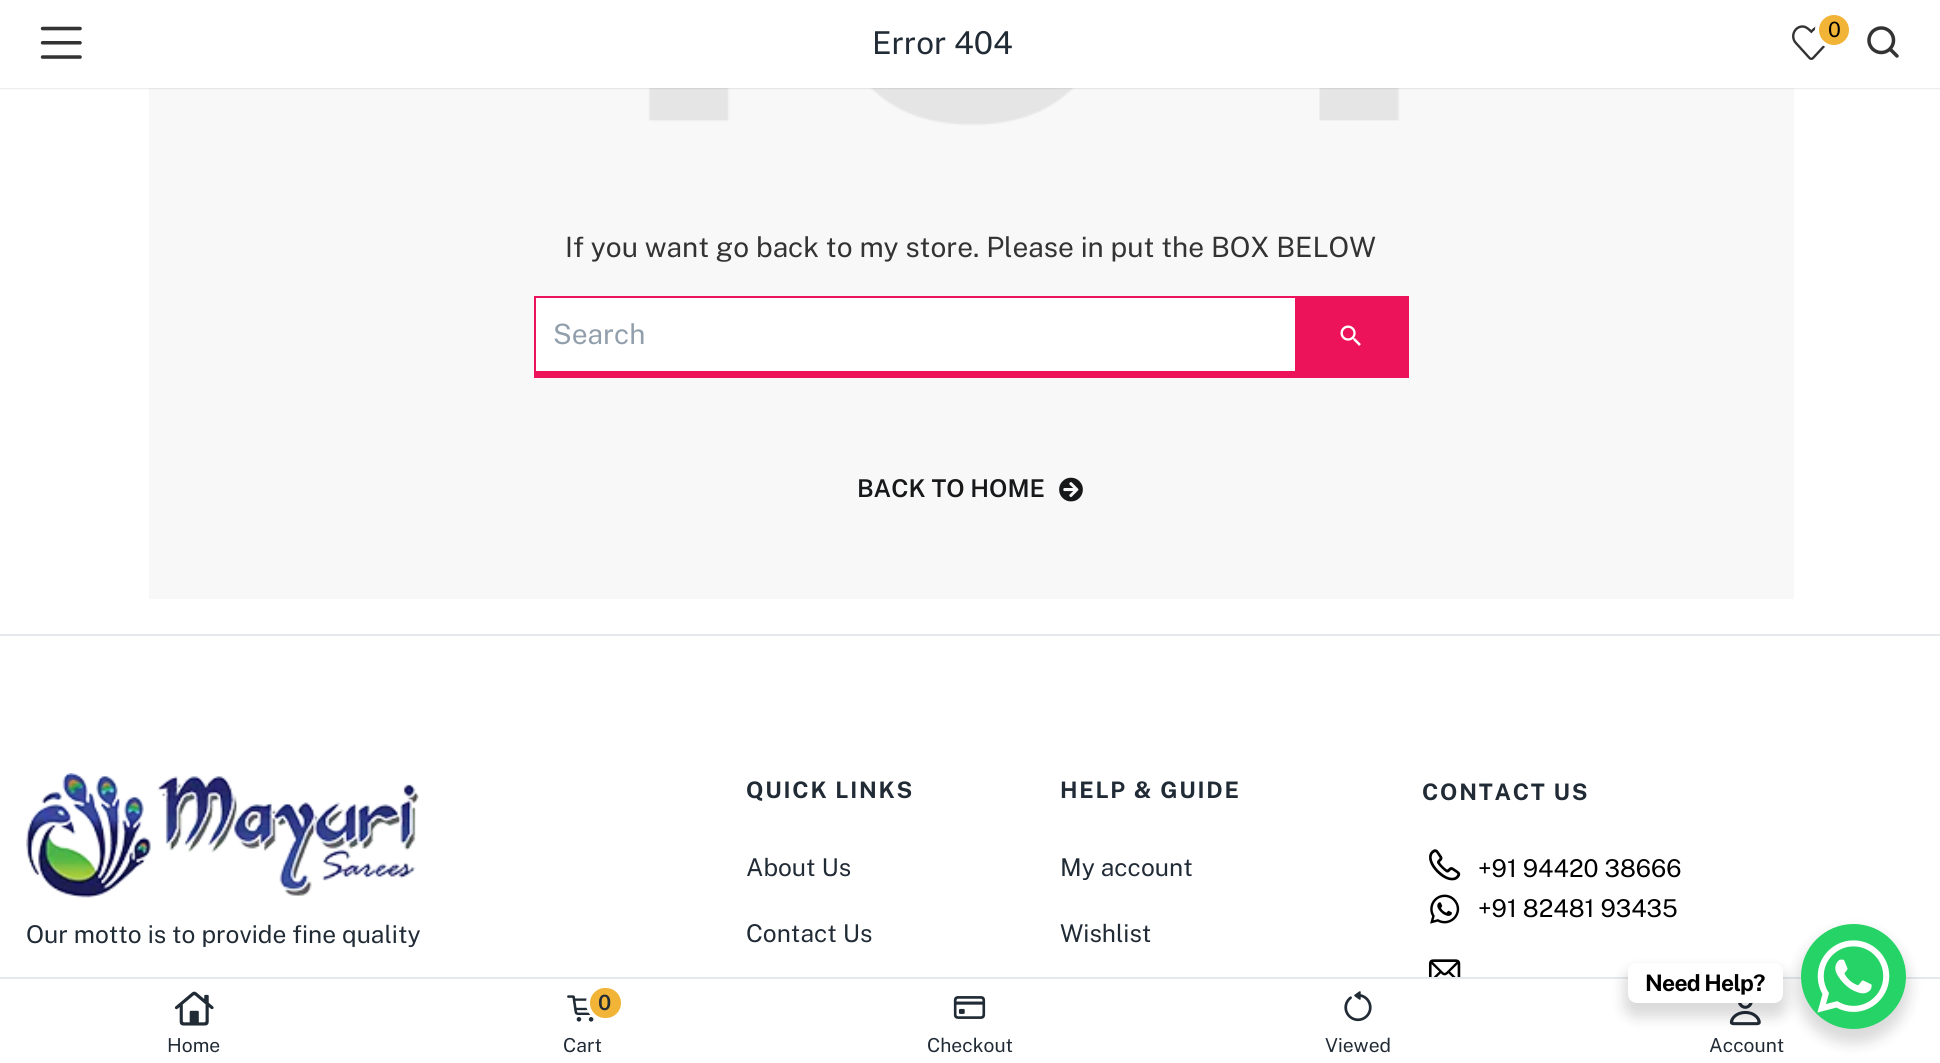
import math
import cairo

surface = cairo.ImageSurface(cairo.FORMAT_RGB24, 1940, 1063)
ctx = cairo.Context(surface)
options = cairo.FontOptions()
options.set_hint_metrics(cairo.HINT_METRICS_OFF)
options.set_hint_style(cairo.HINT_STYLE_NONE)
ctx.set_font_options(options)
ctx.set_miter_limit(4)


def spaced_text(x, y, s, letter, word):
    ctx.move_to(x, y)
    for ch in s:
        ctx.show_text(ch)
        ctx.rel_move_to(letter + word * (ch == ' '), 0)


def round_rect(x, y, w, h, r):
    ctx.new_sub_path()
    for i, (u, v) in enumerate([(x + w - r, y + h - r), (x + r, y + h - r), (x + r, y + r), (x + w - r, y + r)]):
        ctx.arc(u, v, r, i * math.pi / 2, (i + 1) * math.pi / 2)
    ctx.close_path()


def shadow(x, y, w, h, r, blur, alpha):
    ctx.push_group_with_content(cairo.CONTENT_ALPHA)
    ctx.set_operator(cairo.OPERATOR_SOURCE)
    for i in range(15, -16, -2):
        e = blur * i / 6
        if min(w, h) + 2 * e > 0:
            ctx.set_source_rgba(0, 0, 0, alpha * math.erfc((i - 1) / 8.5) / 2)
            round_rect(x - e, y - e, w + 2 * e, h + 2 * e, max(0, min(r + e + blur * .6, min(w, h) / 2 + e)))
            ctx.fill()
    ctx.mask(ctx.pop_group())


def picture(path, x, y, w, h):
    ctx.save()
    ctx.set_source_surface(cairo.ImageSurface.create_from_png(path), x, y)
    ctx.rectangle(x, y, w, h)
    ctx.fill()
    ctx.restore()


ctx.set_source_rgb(1, 1, 1)
ctx.paint()
ctx.set_source_rgb(0.969, 0.969, 0.969)
ctx.rectangle(149, 88, 1645, 511)
ctx.fill()
picture("img4.png", 648, 88, 753, 38)
ctx.set_source_rgb(0, 0, 0)
shadow(0, 0, 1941, 88, 0, 1, 0.2)
ctx.set_source_rgb(1, 1, 1)
ctx.rectangle(0, 0, 1940, 88)
ctx.fill()
picture("img1.png", 40, 26, 42, 33)
ctx.select_font_face("Public Sans")
ctx.set_font_size(31.5)
ctx.set_source_rgb(0.129, 0.169, 0.212)
ctx.move_to(872, 54)
ctx.show_text("Error 404")
picture("img2.png", 1792, 25, 34, 35)
ctx.set_source_rgb(0.949, 0.706, 0.216)
ctx.arc(1834, 30, 17, 0, 2 * math.pi)
ctx.fill_preserve()
ctx.set_source_rgb(1, 1, 1)
ctx.set_line_width(4)
ctx.stroke()
ctx.set_font_size(21)
ctx.set_source_rgb(0, 0, 0)
ctx.move_to(1828, 37)
ctx.show_text("0")
picture("img3.png", 1867, 26, 32, 32)
ctx.set_font_size(28)
ctx.set_source_rgb(0.2, 0.2, 0.2)
ctx.move_to(565, 257)
ctx.show_text("If you want go back to my store. Please in put the BOX BELOW")
ctx.set_source_rgb(0.929, 0.078, 0.357)
ctx.rectangle(534, 296, 875, 82)
ctx.fill()
ctx.set_source_rgb(1, 1, 1)
ctx.rectangle(536, 298, 759, 73)
ctx.fill()
ctx.set_source_rgb(0.569, 0.62, 0.671)
ctx.move_to(553, 344)
ctx.show_text("Search")
picture("img5.png", 1340, 325, 21, 21)
ctx.select_font_face("Public Sans SemiBold")
ctx.set_font_size(24.5)
ctx.set_source_rgb(0.09, 0.094, 0.102)
ctx.move_to(857, 497)
ctx.show_text("BACK TO HOME")
picture("img6.png", 1059, 477, 24, 25)
ctx.set_source_rgb(0.898, 0.91, 0.922)
ctx.rectangle(0, 634, 1940, 2)
ctx.fill()
ctx.select_font_face("Public Sans", cairo.FONT_SLANT_NORMAL, cairo.FONT_WEIGHT_BOLD)
ctx.set_font_size(22.75)
ctx.set_source_rgb(0.129, 0.169, 0.212)
spaced_text(746, 798, "QUICK LINKS", 1.75, 0)
ctx.select_font_face("Public Sans")
ctx.set_font_size(24.5)
ctx.move_to(746, 876)
ctx.show_text("About Us")
ctx.move_to(746, 942)
ctx.show_text("Contact Us")
ctx.select_font_face("Public Sans", cairo.FONT_SLANT_NORMAL, cairo.FONT_WEIGHT_BOLD)
ctx.set_font_size(22.75)
spaced_text(1060, 798, "HELP & GUIDE", 1.75, 0)
ctx.select_font_face("Public Sans")
ctx.set_font_size(24.5)
ctx.move_to(1060, 876)
ctx.show_text("My account")
ctx.move_to(1060, 942)
ctx.show_text("Wishlist")
ctx.select_font_face("Public Sans", cairo.FONT_SLANT_NORMAL, cairo.FONT_WEIGHT_BOLD)
ctx.set_font_size(22.75)
spaced_text(1422, 800, "CONTACT US", 1.75, 0)
picture("img7.png", 1429, 849, 32, 32)
ctx.select_font_face("Public Sans")
ctx.set_font_size(24.5)
ctx.set_source_rgb(0, 0, 0)
ctx.move_to(1478, 877)
ctx.show_text("+91 94420 38666")
picture("img8.png", 1430, 894, 30, 30)
ctx.move_to(1478, 917)
ctx.show_text("+91 82481 93435")
picture("img9.png", 1428, 959, 33, 18)
picture("img10.png", 26, 773, 393, 125)
ctx.set_source_rgb(0.129, 0.169, 0.212)
ctx.move_to(26, 943)
ctx.show_text("Our motto is to provide fine quality")
ctx.set_source_rgb(0.898, 0.91, 0.922)
ctx.rectangle(0, 977, 1940, 2)
ctx.fill()
picture("img11.png", 174, 991, 40, 35)
ctx.set_font_size(19.25)
ctx.set_source_rgb(0.129, 0.169, 0.212)
ctx.move_to(167, 1052)
ctx.show_text("Home")
picture("img12.png", 567, 995, 27, 27)
ctx.set_source_rgb(0.949, 0.706, 0.216)
round_rect(588, 986, 35, 34, 17)
ctx.fill_preserve()
ctx.set_source_rgb(1, 1, 1)
ctx.stroke()
ctx.select_font_face("Public Sans SemiBold")
ctx.set_font_size(21)
ctx.set_source_rgb(0.129, 0.169, 0.212)
ctx.move_to(598, 1010)
ctx.show_text("0")
ctx.select_font_face("Public Sans")
ctx.set_font_size(19.25)
ctx.move_to(563, 1052)
ctx.show_text("Cart")
picture("img13.png", 953, 996, 33, 23)
ctx.move_to(927, 1052)
ctx.show_text("Checkout")
picture("img14.png", 1344, 991, 28, 31)
ctx.move_to(1325, 1052)
ctx.show_text("Viewed")
picture("img15.png", 1729, 1003, 32, 23)
ctx.move_to(1709, 1052)
ctx.show_text("Account")
ctx.set_source_rgb(0, 0, 0)
shadow(1797, 931, 112, 112, 56, 7, 0.15)
ctx.set_source_rgb(0.145, 0.827, 0.4)
ctx.arc(1853.5, 976.5, 52.5, 0, 2 * math.pi)
ctx.fill()
ctx.set_source_rgb(0, 0, 0)
shadow(1624, 970, 163, 47, 12, 7, 0.15)
ctx.set_source_rgb(1, 1, 1)
round_rect(1628, 963, 155, 40, 9)
ctx.fill()
ctx.select_font_face("Public Sans", cairo.FONT_SLANT_NORMAL, cairo.FONT_WEIGHT_BOLD)
ctx.set_font_size(22.75)
ctx.set_source_rgb(0, 0, 0)
spaced_text(1645, 991, "Need Help?", -0.75, 0)
picture("img16.png", 1817, 940, 73, 73)
surface.write_to_png("page.png")
